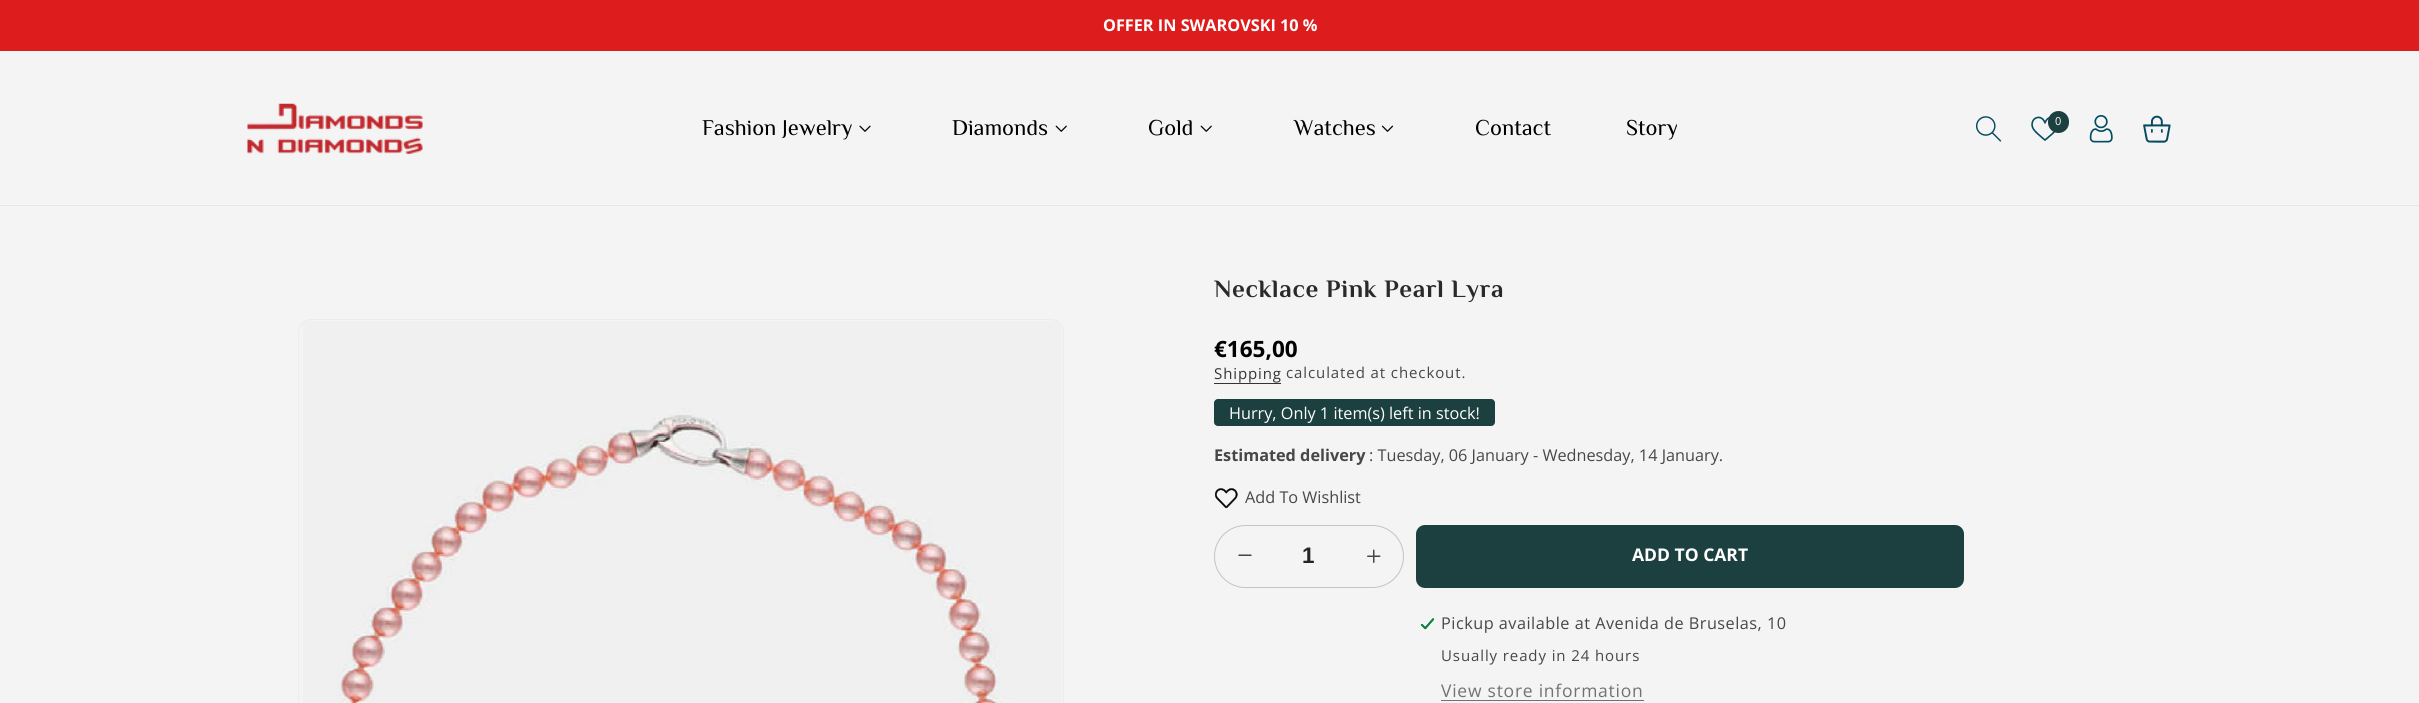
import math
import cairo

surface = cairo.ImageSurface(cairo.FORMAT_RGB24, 2419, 703)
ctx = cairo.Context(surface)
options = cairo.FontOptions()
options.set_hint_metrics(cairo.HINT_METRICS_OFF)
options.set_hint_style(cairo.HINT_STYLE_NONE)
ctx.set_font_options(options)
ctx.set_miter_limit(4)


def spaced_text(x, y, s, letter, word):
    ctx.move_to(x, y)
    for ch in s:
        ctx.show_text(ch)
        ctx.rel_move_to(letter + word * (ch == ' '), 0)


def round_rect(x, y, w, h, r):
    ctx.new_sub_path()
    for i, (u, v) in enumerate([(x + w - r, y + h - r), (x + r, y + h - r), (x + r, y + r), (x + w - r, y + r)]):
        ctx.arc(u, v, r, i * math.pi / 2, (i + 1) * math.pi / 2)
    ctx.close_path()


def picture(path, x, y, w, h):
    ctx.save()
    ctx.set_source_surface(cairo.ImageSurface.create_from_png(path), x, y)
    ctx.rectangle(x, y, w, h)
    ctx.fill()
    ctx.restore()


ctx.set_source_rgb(0.957, 0.957, 0.957)
ctx.paint()
ctx.set_source_rgb(0.867, 0.114, 0.114)
ctx.rectangle(0, 0, 2419, 50)
ctx.fill()
ctx.set_source_rgb(0.82, 0.125, 0.125)
ctx.rectangle(0, 50, 2419, 1)
ctx.fill()
ctx.select_font_face("Open Sans", cairo.FONT_SLANT_NORMAL, cairo.FONT_WEIGHT_BOLD)
ctx.set_font_size(16.25)
ctx.set_source_rgb(1, 1, 1)
ctx.move_to(1103, 31)
ctx.show_text("OFFER IN SWAROVSKI 10 %")
ctx.set_source_rgb(0.902, 0.902, 0.902)
ctx.rectangle(0, 205, 2419, 1)
ctx.fill()
picture("img1.png", 247, 103, 176, 51)
ctx.select_font_face("Philosopher")
ctx.set_font_size(22.5)
ctx.set_source_rgb(0, 0, 0)
ctx.move_to(702, 135)
ctx.show_text("Fashion Jewelry")
picture("img2.png", 859, 125, 12, 7)
ctx.move_to(952, 135)
ctx.show_text("Diamonds")
picture("img3.png", 1055, 125, 12, 7)
ctx.move_to(1148, 135)
ctx.show_text("Gold")
picture("img3.png", 1200, 125, 12, 7)
ctx.move_to(1294, 135)
ctx.show_text("Watches")
picture("img4.png", 1381, 125, 13, 7)
ctx.move_to(1475, 135)
ctx.show_text("Contact")
ctx.move_to(1626, 135)
ctx.show_text("Story")
picture("img5.png", 1976, 116, 26, 26)
picture("img6.png", 2031, 116, 25, 25)
ctx.set_source_rgb(0.11, 0.247, 0.247)
round_rect(2048, 111, 21, 22, 10.5)
ctx.fill()
ctx.select_font_face("Open Sans")
ctx.set_font_size(11)
ctx.set_source_rgb(1, 1, 1)
ctx.move_to(2055, 125)
ctx.show_text("0")
picture("img7.png", 2089, 115, 24, 28)
picture("img8.png", 2143, 115, 28, 28)
round_rect(298.5, 319.5, 765, 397, 12.5)
ctx.set_source_rgb(0.922, 0.922, 0.922)
ctx.set_line_width(1)
ctx.stroke()
picture("img9.png", 303, 321, 759, 382)
ctx.select_font_face("Philosopher", cairo.FONT_SLANT_NORMAL, cairo.FONT_WEIGHT_BOLD)
ctx.set_font_size(25)
ctx.set_source_rgb(0.169, 0.165, 0.157)
spaced_text(1214, 297, "Necklace Pink Pearl Lyra", 0.75, 0)
ctx.select_font_face("Open Sans", cairo.FONT_SLANT_NORMAL, cairo.FONT_WEIGHT_BOLD)
ctx.set_font_size(22.5)
ctx.set_source_rgb(0, 0, 0)
ctx.move_to(1214, 357)
ctx.show_text("€165,00")
ctx.select_font_face("Open Sans")
ctx.set_font_size(15)
ctx.set_source_rgb(0.204, 0.204, 0.204)
spaced_text(1214, 379, "Shipping", 0.9, 0)
ctx.rectangle(1214, 383, 67, 1)
ctx.fill()
ctx.set_source_rgb(0.278, 0.278, 0.278)
spaced_text(1286, 378, "calculated at checkout.", 0.9, 0)
ctx.set_source_rgb(0.11, 0.247, 0.247)
round_rect(1214, 399, 281, 27, 4)
ctx.fill()
ctx.set_font_size(16.25)
ctx.set_source_rgb(1, 1, 1)
ctx.move_to(1229, 419)
ctx.show_text("Hurry, Only 1 item(s) left in stock!")
ctx.select_font_face("Open Sans", cairo.FONT_SLANT_NORMAL, cairo.FONT_WEIGHT_BOLD)
ctx.set_source_rgb(0.278, 0.278, 0.278)
ctx.move_to(1214, 461)
ctx.show_text("Estimated delivery")
ctx.select_font_face("Open Sans")
ctx.move_to(1369, 461)
ctx.show_text(": Tuesday, 06 January - Wednesday, 14 January.")
picture("img10.png", 1214, 488, 24, 21)
ctx.move_to(1245, 503)
ctx.show_text("Add To Wishlist")
round_rect(1214.5, 525.5, 189, 62, 31)
ctx.set_source_rgb(0.765, 0.765, 0.765)
ctx.stroke()
picture("img11.png", 1238, 554, 14, 2)
ctx.select_font_face("Liberation Sans", cairo.FONT_SLANT_NORMAL, cairo.FONT_WEIGHT_BOLD)
ctx.set_font_size(22.5)
ctx.set_source_rgb(0.145, 0.145, 0.145)
ctx.move_to(1302, 563)
ctx.show_text("1")
picture("img12.png", 1367, 549, 14, 14)
ctx.set_source_rgb(0.11, 0.247, 0.247)
round_rect(1416, 525, 548, 63, 9)
ctx.fill()
ctx.select_font_face("Open Sans", cairo.FONT_SLANT_NORMAL, cairo.FONT_WEIGHT_BOLD)
ctx.set_font_size(17.5)
ctx.set_source_rgb(1, 1, 1)
ctx.move_to(1632, 561)
ctx.show_text("ADD TO CART")
picture("img13.png", 1420, 617, 15, 14)
ctx.select_font_face("Open Sans")
ctx.set_font_size(16.25)
ctx.set_source_rgb(0.278, 0.278, 0.278)
spaced_text(1441, 629, "Pickup available at Avenida de Bruselas, 10", 0.5, 0)
ctx.set_font_size(15)
spaced_text(1441, 661, "Usually ready in 24 hours", 0.9, 0)
ctx.set_font_size(17.5)
ctx.set_source_rgb(0.447, 0.447, 0.447)
spaced_text(1441, 697, "View store information", 0.75, 0)
ctx.rectangle(1441, 700, 203, 1)
ctx.fill()
surface.write_to_png("page.png")
